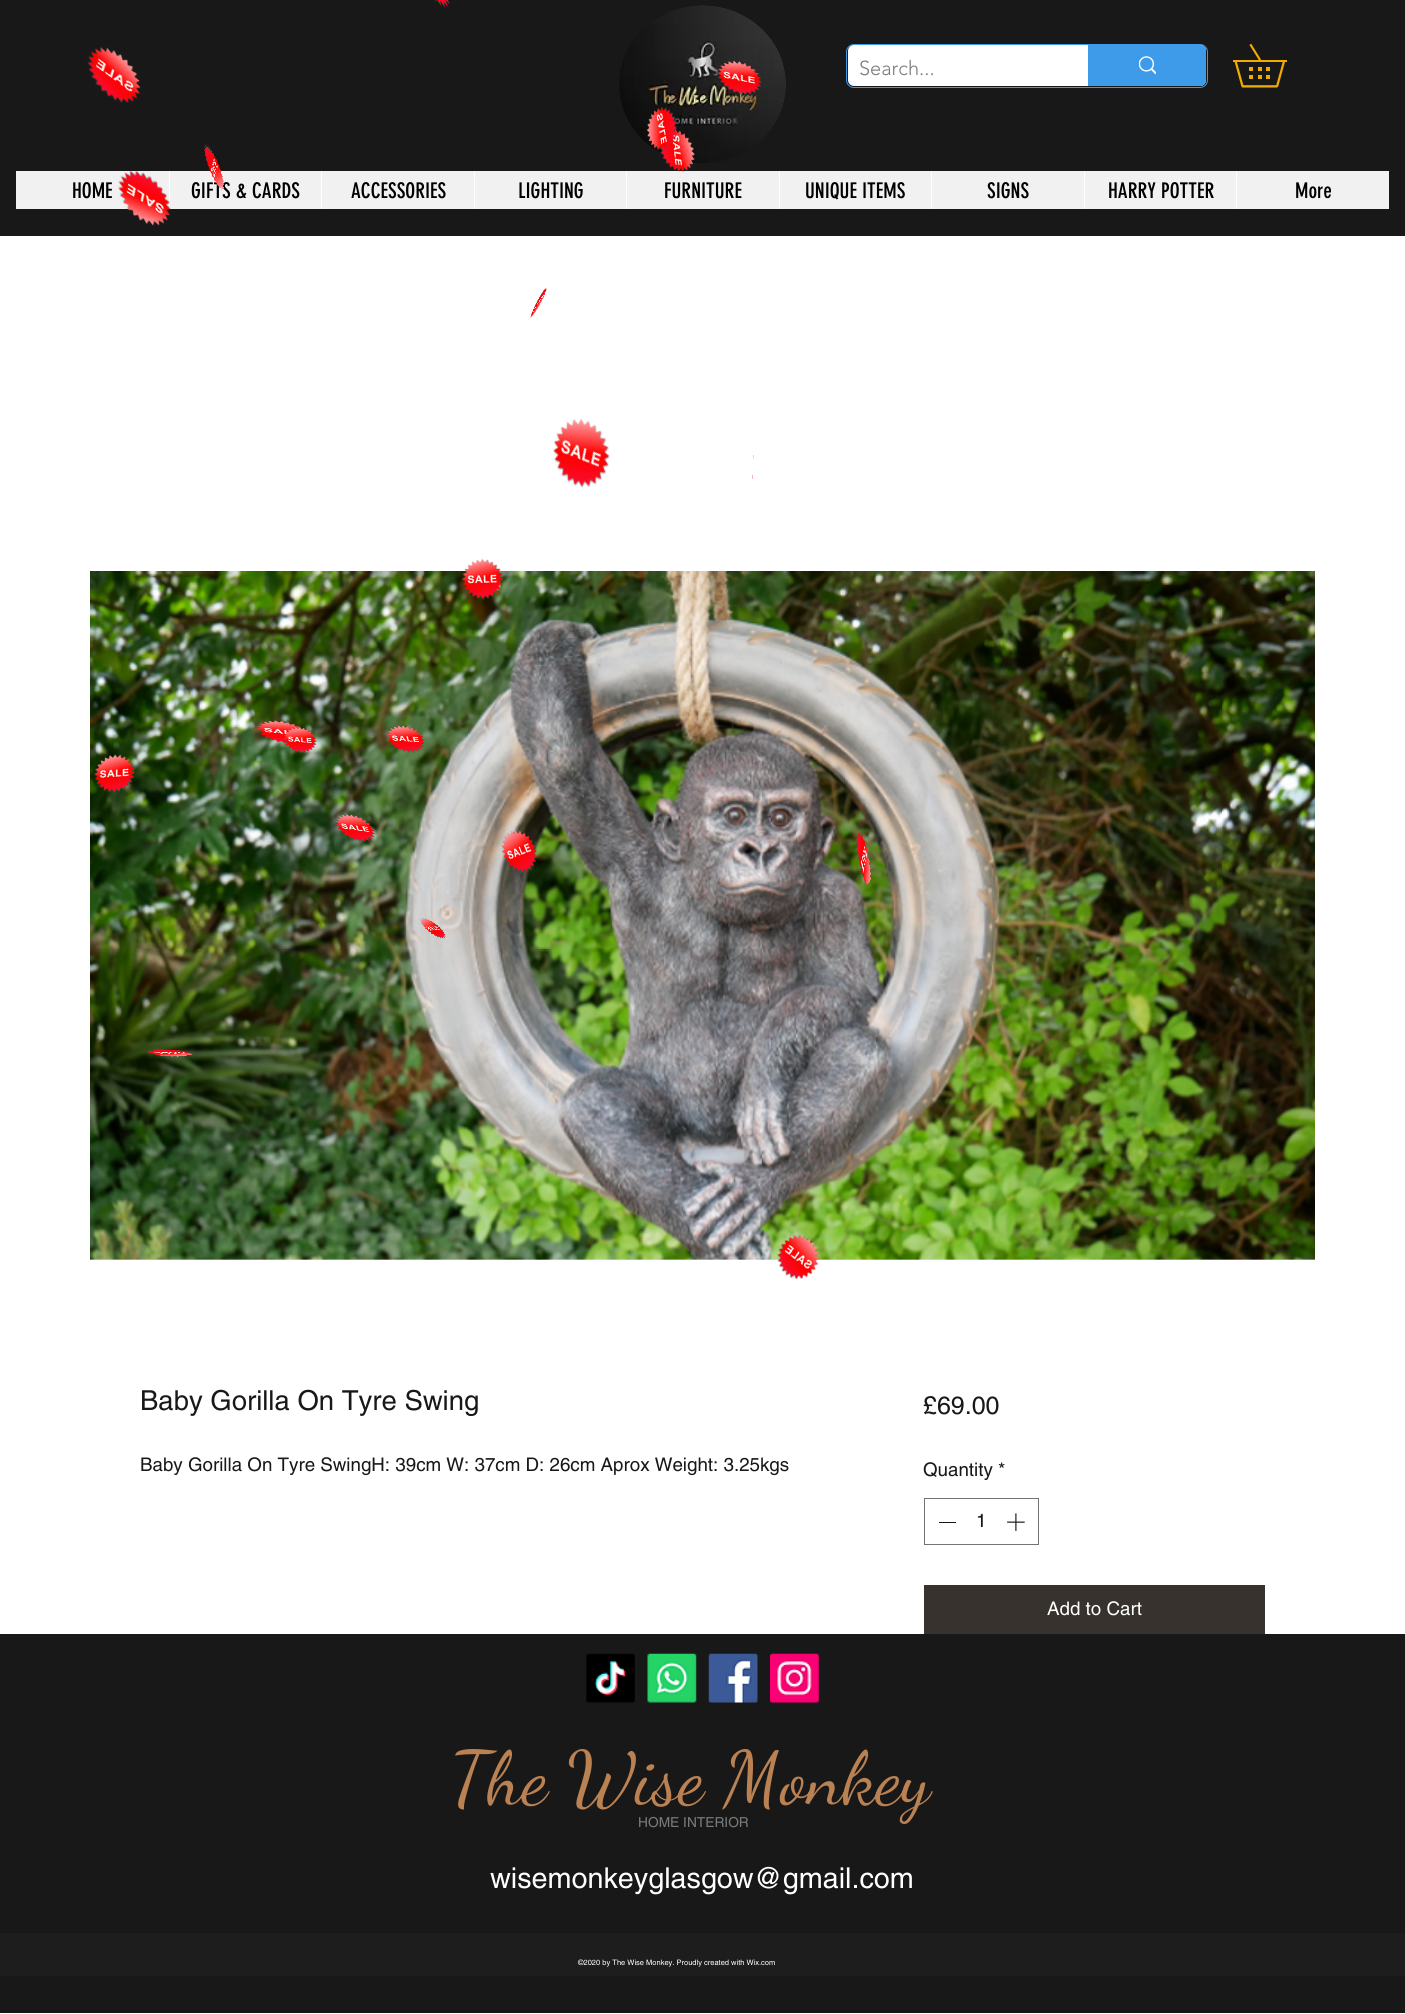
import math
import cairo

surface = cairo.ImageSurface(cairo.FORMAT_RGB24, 1405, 2014)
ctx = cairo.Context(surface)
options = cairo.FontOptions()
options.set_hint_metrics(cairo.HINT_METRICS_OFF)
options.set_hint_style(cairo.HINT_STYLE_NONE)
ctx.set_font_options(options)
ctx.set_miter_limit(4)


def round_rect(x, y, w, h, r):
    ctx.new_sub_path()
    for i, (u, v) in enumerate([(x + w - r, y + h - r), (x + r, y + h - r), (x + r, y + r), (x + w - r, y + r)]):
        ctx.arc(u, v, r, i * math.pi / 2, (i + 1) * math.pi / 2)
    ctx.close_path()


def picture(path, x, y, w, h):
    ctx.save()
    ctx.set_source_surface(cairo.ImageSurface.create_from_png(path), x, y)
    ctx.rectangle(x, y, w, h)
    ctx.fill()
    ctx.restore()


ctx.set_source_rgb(1, 1, 1)
ctx.paint()
ctx.set_source_rgb(0.094, 0.094, 0.094)
ctx.rectangle(0, 0, 1405, 236)
ctx.fill()
picture("img1.png", 435, 0, 15, 8)
picture("img2.png", 87, 47, 54, 57)
picture("img22.png", 619, 5, 167, 158)
picture("img3.png", 717, 60, 45, 35)
ctx.set_source_rgb(0.945, 0.945, 0.945)
ctx.rectangle(16, 171, 1373, 38)
ctx.fill()
picture("img7.png", 659, 128, 36, 44)
picture("img4.png", 646, 107, 31, 44)
ctx.set_source_rgb(1, 1, 1)
ctx.rectangle(169, 171, 1, 38)
ctx.fill()
picture("img5.png", 118, 170, 53, 56)
ctx.select_font_face("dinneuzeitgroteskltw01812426")
ctx.set_font_size(21.25)
ctx.set_source_rgb(0, 0, 0)
ctx.move_to(191, 198)
ctx.show_text("GIFTS & CARDS")
picture("img6.png", 204, 144, 21, 46)
picture("img8.png", 530, 287, 17, 31)
picture("img9.png", 553, 418, 57, 70)
picture("img10.png", 752, 455, 2, 24)
picture("img25.png", 90, 571, 1225, 689)
picture("img11.png", 462, 558, 41, 42)
picture("img12.png", 256, 720, 49, 24)
picture("img13.png", 386, 725, 39, 28)
picture("img14.png", 283, 727, 34, 26)
picture("img15.png", 94, 754, 42, 39)
picture("img16.png", 335, 814, 41, 28)
picture("img17.png", 501, 830, 36, 42)
picture("img18.png", 857, 832, 14, 55)
picture("img19.png", 420, 918, 26, 21)
picture("img20.png", 147, 1049, 46, 8)
picture("img21.png", 777, 1234, 43, 46)
round_rect(846.5, 44.5, 361, 43, 7.5)
ctx.set_source_rgb(0.239, 0.608, 0.914)
ctx.set_line_width(1)
ctx.stroke()
ctx.set_source_rgb(1, 1, 1)
round_rect(848, 45, 358, 41, 6)
ctx.fill()
ctx.select_font_face("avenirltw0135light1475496 Light")
ctx.set_font_size(20)
ctx.set_source_rgb(0.482, 0.482, 0.482)
ctx.move_to(859, 75)
ctx.show_text("Search...")
ctx.set_source_rgb(0.239, 0.608, 0.914)
ctx.new_path()
ctx.move_to(1088, 45)
ctx.line_to(1200, 45)
ctx.curve_to(1203.5, 45, 1206, 47.5, 1206, 51)
ctx.line_to(1206, 80)
ctx.curve_to(1206, 83.5, 1203.5, 86, 1200, 86)
ctx.line_to(1088, 86)
ctx.close_path()
ctx.fill()
picture("img23.png", 1139, 56, 17, 19)
picture("img24.png", 1233, 43, 54, 45)
ctx.select_font_face("dinneuzeitgroteskltw01812426")
ctx.set_font_size(21.25)
ctx.set_source_rgb(0, 0, 0)
ctx.move_to(72, 198)
ctx.show_text("HOME")
ctx.set_source_rgb(1, 1, 1)
ctx.rectangle(321, 171, 1, 38)
ctx.fill()
ctx.set_source_rgb(0, 0, 0)
ctx.move_to(351, 198)
ctx.show_text("ACCESSORIES")
ctx.set_source_rgb(1, 1, 1)
ctx.rectangle(474, 171, 1, 38)
ctx.fill()
ctx.set_source_rgb(0, 0, 0)
ctx.move_to(518, 198)
ctx.show_text("LIGHTING")
ctx.set_source_rgb(1, 1, 1)
ctx.rectangle(626, 171, 1, 38)
ctx.fill()
ctx.set_source_rgb(0, 0, 0)
ctx.move_to(664, 198)
ctx.show_text("FURNITURE")
ctx.set_source_rgb(1, 1, 1)
ctx.rectangle(779, 171, 1, 38)
ctx.fill()
ctx.set_source_rgb(0, 0, 0)
ctx.move_to(805, 198)
ctx.show_text("UNIQUE ITEMS")
ctx.set_source_rgb(1, 1, 1)
ctx.rectangle(931, 171, 1, 38)
ctx.fill()
ctx.set_source_rgb(0, 0, 0)
ctx.move_to(987, 198)
ctx.show_text("SIGNS")
ctx.set_source_rgb(1, 1, 1)
ctx.rectangle(1084, 171, 1, 38)
ctx.fill()
ctx.set_source_rgb(0, 0, 0)
ctx.move_to(1108, 198)
ctx.show_text("HARRY POTTER")
ctx.set_source_rgb(1, 1, 1)
ctx.rectangle(1236, 171, 1, 38)
ctx.fill()
ctx.set_source_rgb(0, 0, 0)
ctx.move_to(1295, 198)
ctx.show_text("More")
ctx.select_font_face("helvetica")
ctx.set_font_size(27.5)
ctx.set_source_rgb(0.094, 0.094, 0.094)
ctx.move_to(140, 1410)
ctx.show_text("Baby Gorilla On Tyre Swing")
ctx.set_font_size(18.75)
ctx.move_to(140, 1471)
ctx.show_text("Baby Gorilla On Tyre SwingH: 39cm W: 37cm D: 26cm Aprox Weight: 3.25kgs")
ctx.set_font_size(25)
ctx.move_to(923, 1414)
ctx.show_text("£69.00")
ctx.set_font_size(18.75)
ctx.move_to(923, 1476)
ctx.show_text("Quantity *")
ctx.rectangle(924.5, 1498.5, 114, 46)
ctx.set_source_rgb(0.455, 0.455, 0.455)
ctx.stroke()
ctx.set_source_rgb(0.094, 0.094, 0.094)
ctx.rectangle(939, 1522, 17, 1)
ctx.fill()
ctx.move_to(976, 1527)
ctx.show_text("1")
picture("img26.png", 1007, 1513, 18, 18)
ctx.set_source_rgb(0.216, 0.196, 0.18)
ctx.rectangle(924, 1585, 341, 49)
ctx.fill()
ctx.set_source_rgb(1, 1, 1)
ctx.move_to(1047, 1615)
ctx.show_text("Add to Cart")
ctx.set_source_rgb(0.094, 0.094, 0.094)
ctx.rectangle(0, 1634, 1405, 379)
ctx.fill()
picture("img27.png", 586, 1653, 49, 50)
picture("img28.png", 647, 1653, 50, 50)
picture("img29.png", 708, 1653, 50, 50)
picture("img30.png", 770, 1653, 49, 50)
ctx.select_font_face("Dancing Script")
ctx.set_font_size(75)
ctx.set_source_rgb(0.729, 0.506, 0.322)
ctx.move_to(450, 1803)
ctx.show_text("The Wise Monkey")
ctx.select_font_face("helvetica")
ctx.set_font_size(13.75)
ctx.set_source_rgb(0.482, 0.482, 0.482)
ctx.move_to(638, 1827)
ctx.show_text("HOME INTERIOR")
ctx.set_font_size(28.75)
ctx.set_source_rgb(1, 1, 1)
ctx.move_to(490, 1888)
ctx.show_text("wisemonkeyglasgow@gmail.com")
ctx.set_source_rgb(0.114, 0.114, 0.114)
ctx.rectangle(0, 1933, 1405, 43)
ctx.fill()
ctx.set_font_size(7.5)
ctx.set_source_rgb(1, 1, 1)
ctx.move_to(578, 1965)
ctx.show_text("©2020 by The Wise Monkey. Proudly created with Wix.com")
surface.write_to_png("page.png")
